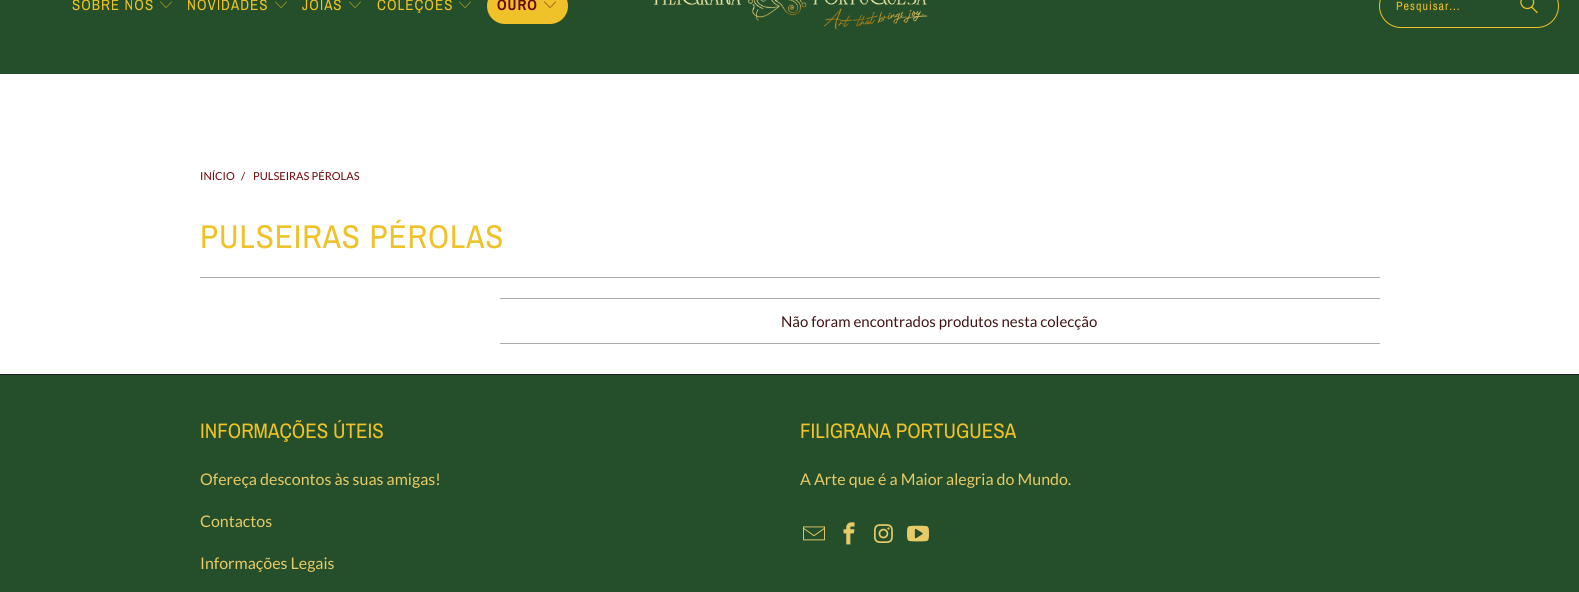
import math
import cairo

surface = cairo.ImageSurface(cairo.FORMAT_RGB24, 1579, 592)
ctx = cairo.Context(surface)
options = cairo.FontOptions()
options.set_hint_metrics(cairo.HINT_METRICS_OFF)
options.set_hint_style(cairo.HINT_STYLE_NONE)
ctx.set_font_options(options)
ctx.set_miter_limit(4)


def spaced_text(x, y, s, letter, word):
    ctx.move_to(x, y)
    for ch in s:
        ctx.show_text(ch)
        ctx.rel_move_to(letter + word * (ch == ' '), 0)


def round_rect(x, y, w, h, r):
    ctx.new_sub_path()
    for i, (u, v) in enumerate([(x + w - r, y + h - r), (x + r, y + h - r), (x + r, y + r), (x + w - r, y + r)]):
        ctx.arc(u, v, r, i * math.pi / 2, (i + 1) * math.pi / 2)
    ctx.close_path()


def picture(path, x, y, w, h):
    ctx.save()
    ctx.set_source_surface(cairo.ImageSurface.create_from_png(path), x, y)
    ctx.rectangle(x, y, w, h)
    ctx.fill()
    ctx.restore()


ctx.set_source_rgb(1, 1, 1)
ctx.paint()
ctx.set_source_rgb(0.145, 0.31, 0.165)
ctx.rectangle(0, 0, 1579, 74)
ctx.fill()
ctx.select_font_face("Archivo Narrow")
ctx.set_font_size(15)
ctx.set_source_rgb(0.933, 0.761, 0.157)
spaced_text(72, 10, "SOBRE NÓS", 1, 0)
picture("img1.png", 160, 1, 12, 7)
spaced_text(187, 10, "NOVIDADES", 1, 0)
picture("img1.png", 275, 1, 12, 7)
spaced_text(302, 10, "JÓIAS", 1, 0)
picture("img1.png", 349, 1, 12, 7)
spaced_text(377, 10, "COLEÇÕES", 1, 0)
picture("img1.png", 459, 1, 12, 7)
round_rect(487, -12, 81, 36, 18)
ctx.fill()
ctx.select_font_face("Archivo Narrow", cairo.FONT_SLANT_NORMAL, cairo.FONT_WEIGHT_BOLD)
ctx.set_source_rgb(0.427, 0.024, 0.035)
spaced_text(497, 10, "OURO", 1, 0)
picture("img2.png", 544, 1, 12, 7)
picture("img3.png", 653, 0, 275, 30)
round_rect(1379.5, -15.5, 179, 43, 21.5)
ctx.set_source_rgb(0.933, 0.761, 0.157)
ctx.set_line_width(1)
ctx.stroke()
ctx.select_font_face("Archivo Narrow")
ctx.set_font_size(12)
spaced_text(1396, 10, "Pesquisar...", 1, 0)
picture("img4.png", 1520, 0, 18, 14)
ctx.select_font_face("Lato")
ctx.set_font_size(11)
ctx.set_source_rgb(0.427, 0.024, 0.035)
ctx.move_to(200, 180)
ctx.show_text("INÍCIO")
ctx.move_to(241, 180)
ctx.show_text("/")
ctx.move_to(253, 180)
ctx.show_text("PULSEIRAS PÉROLAS")
ctx.select_font_face("Archivo Narrow")
ctx.set_font_size(33)
ctx.set_source_rgb(0.933, 0.761, 0.157)
spaced_text(200, 248, "PULSEIRAS PÉROLAS", 1, 0)
ctx.set_source_rgb(0.667, 0.667, 0.667)
ctx.rectangle(200, 277, 1180, 1)
ctx.fill()
ctx.rectangle(500, 298, 880, 1)
ctx.fill()
ctx.rectangle(500, 343, 880, 1)
ctx.fill()
ctx.select_font_face("Lato")
ctx.set_font_size(15)
ctx.set_source_rgb(0.259, 0.078, 0.078)
ctx.move_to(781, 327)
ctx.show_text("Não foram encontrados produtos nesta colecção")
ctx.set_source_rgb(0.145, 0.31, 0.165)
ctx.rectangle(0, 375, 1579, 217)
ctx.fill()
ctx.set_source_rgb(0.106, 0.122, 0.137)
ctx.rectangle(0, 374, 1579, 1)
ctx.fill()
ctx.select_font_face("Archivo Narrow")
ctx.set_font_size(21)
ctx.set_source_rgb(0.933, 0.761, 0.157)
ctx.move_to(200, 438)
ctx.show_text("INFORMAÇÕES ÚTEIS")
ctx.select_font_face("Lato")
ctx.set_font_size(16)
ctx.set_source_rgb(0.906, 0.796, 0.408)
ctx.move_to(200, 485)
ctx.show_text("Ofereça descontos às suas amigas!")
ctx.move_to(200, 527)
ctx.show_text("Contactos")
ctx.move_to(200, 569)
ctx.show_text("Informações Legais")
ctx.select_font_face("Archivo Narrow")
ctx.set_font_size(21)
ctx.set_source_rgb(0.933, 0.761, 0.157)
ctx.move_to(800, 438)
ctx.show_text("FILIGRANA PORTUGUESA")
ctx.select_font_face("Lato")
ctx.set_font_size(16)
ctx.set_source_rgb(0.906, 0.796, 0.408)
ctx.move_to(800, 485)
ctx.show_text("A Arte que é a Maior alegria do Mundo.")
picture("img5.png", 803, 526, 22, 15)
picture("img6.png", 843, 522, 12, 23)
picture("img7.png", 874, 524, 19, 19)
picture("img8.png", 907, 525, 22, 17)
surface.write_to_png("page.png")
